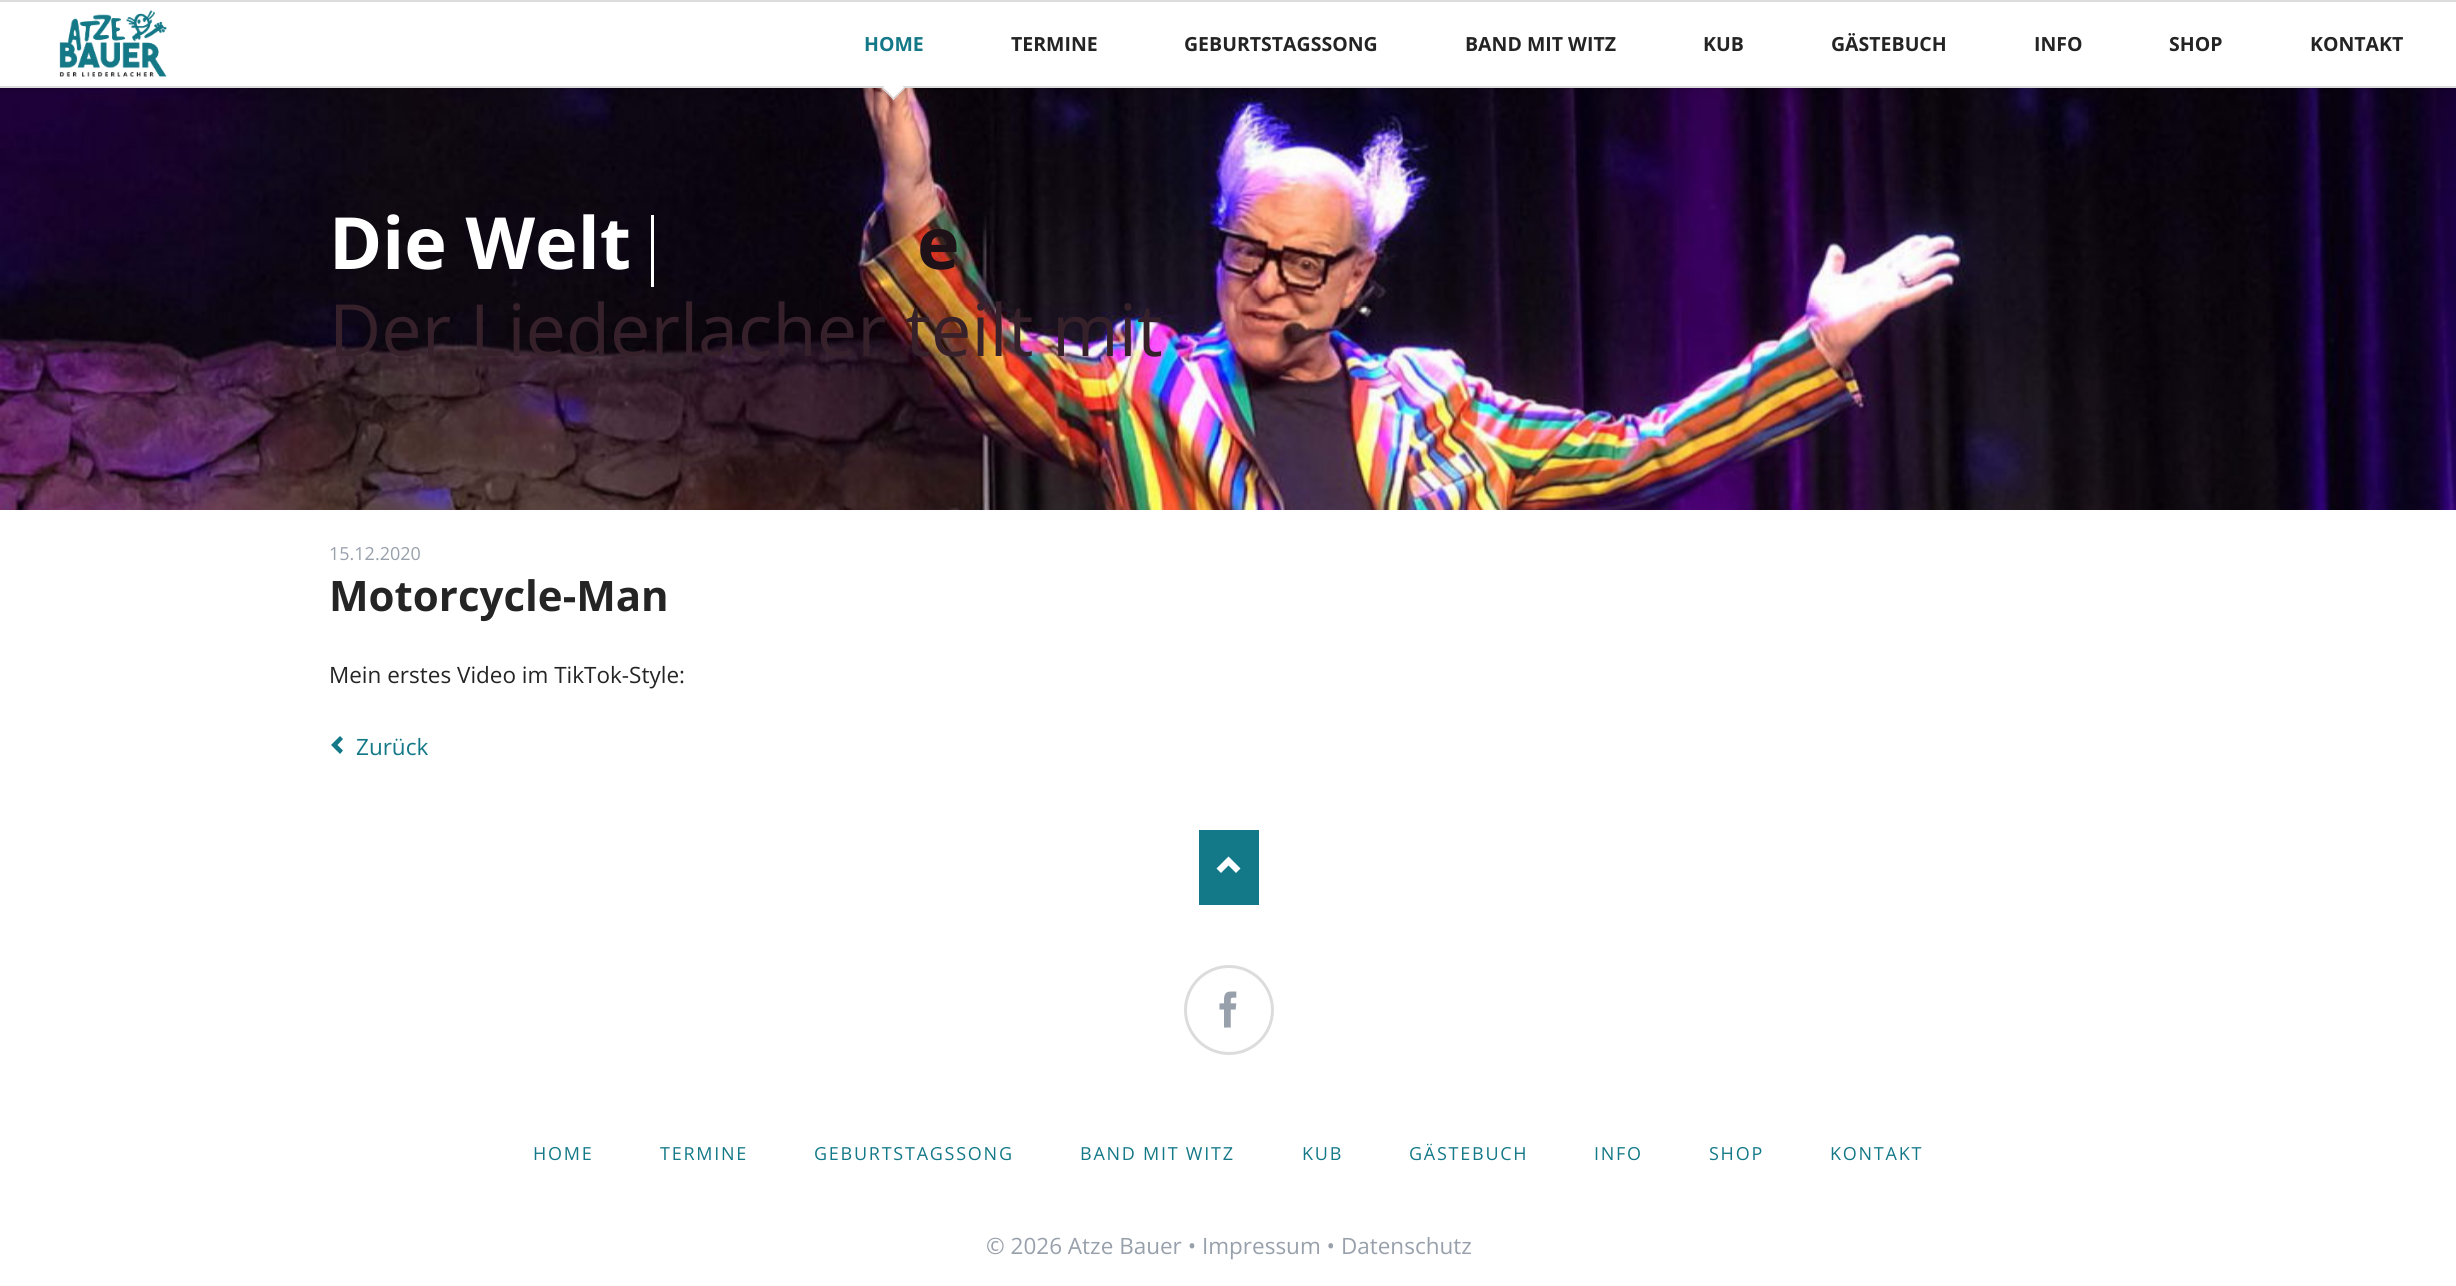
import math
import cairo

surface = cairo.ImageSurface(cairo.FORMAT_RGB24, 2456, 1286)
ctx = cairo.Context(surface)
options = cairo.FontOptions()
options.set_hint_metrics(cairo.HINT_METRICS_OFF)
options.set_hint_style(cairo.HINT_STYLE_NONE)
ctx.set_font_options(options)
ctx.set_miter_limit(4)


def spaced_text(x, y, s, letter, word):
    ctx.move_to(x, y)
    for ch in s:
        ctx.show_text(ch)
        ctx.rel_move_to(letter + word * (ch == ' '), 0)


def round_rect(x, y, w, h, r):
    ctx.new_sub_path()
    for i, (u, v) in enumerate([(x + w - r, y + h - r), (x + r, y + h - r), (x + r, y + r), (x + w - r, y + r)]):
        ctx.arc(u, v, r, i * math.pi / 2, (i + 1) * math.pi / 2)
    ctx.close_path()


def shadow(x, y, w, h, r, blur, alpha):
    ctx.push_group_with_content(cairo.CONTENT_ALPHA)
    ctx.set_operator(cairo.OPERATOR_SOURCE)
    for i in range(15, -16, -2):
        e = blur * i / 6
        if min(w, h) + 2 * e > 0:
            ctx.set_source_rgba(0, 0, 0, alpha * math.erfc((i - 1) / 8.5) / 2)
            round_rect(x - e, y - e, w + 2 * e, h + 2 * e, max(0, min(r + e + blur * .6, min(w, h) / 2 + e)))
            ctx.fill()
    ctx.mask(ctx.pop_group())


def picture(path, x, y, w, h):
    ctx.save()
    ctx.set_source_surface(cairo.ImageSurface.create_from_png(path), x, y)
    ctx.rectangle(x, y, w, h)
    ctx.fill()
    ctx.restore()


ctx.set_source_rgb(1, 1, 1)
ctx.paint()
picture("img2.png", 0, 88, 2456, 422)
ctx.set_source_rgb(0, 0, 0)
shadow(0, 0, 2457, 87, 0, 7.5, 0.2)
ctx.set_source_rgb(1, 1, 1)
ctx.rectangle(0, 2, 2456, 84)
ctx.fill()
ctx.set_source_rgb(0.863, 0.863, 0.863)
ctx.rectangle(0, 0, 2456, 2)
ctx.fill()
ctx.rectangle(0, 86, 2456, 2)
ctx.fill()
picture("img1.png", 59, 10, 108, 67)
ctx.select_font_face("Open Sans", cairo.FONT_SLANT_NORMAL, cairo.FONT_WEIGHT_BOLD)
ctx.set_font_size(19.5)
ctx.set_source_rgb(0.078, 0.471, 0.529)
ctx.move_to(864, 51)
ctx.show_text("HOME")
ctx.set_source_rgb(1, 1, 1)
ctx.new_path()
ctx.move_to(893.5, 77)
ctx.line_to(904, 87.5)
ctx.line_to(893.5, 98)
ctx.line_to(883, 87.5)
ctx.close_path()
ctx.fill()
ctx.set_source_rgb(0.863, 0.863, 0.863)
ctx.new_path()
ctx.move_to(904, 87.5)
ctx.line_to(905, 88.5)
ctx.line_to(893.5, 100)
ctx.line_to(892.5, 99)
ctx.close_path()
ctx.fill()
ctx.new_path()
ctx.move_to(883, 87.5)
ctx.line_to(894.5, 99)
ctx.line_to(893.5, 100)
ctx.line_to(882, 88.5)
ctx.close_path()
ctx.fill()
ctx.set_source_rgb(0.141, 0.141, 0.141)
ctx.move_to(1011, 51)
ctx.show_text("TERMINE")
ctx.move_to(1184, 51)
ctx.show_text("GEBURTSTAGSSONG")
ctx.move_to(1465, 51)
ctx.show_text("BAND MIT WITZ")
ctx.move_to(1703, 51)
ctx.show_text("KUB")
ctx.move_to(1831, 51)
ctx.show_text("GÄSTEBUCH")
ctx.move_to(2034, 51)
ctx.show_text("INFO")
ctx.move_to(2169, 51)
ctx.show_text("SHOP")
ctx.move_to(2310, 51)
ctx.show_text("KONTAKT")
ctx.set_font_size(72)
ctx.set_source_rgb(1, 1, 1)
ctx.move_to(329, 269)
ctx.show_text("Die Welt")
ctx.rectangle(651, 215, 3, 72)
ctx.fill()
ctx.set_source_rgb(0.118, 0.067, 0.094)
ctx.move_to(917, 269)
ctx.show_text("e")
ctx.select_font_face("Open Sans")
ctx.set_source_rgb(0.212, 0.129, 0.169)
ctx.move_to(329, 356)
ctx.show_text("Der Liederlacher teilt mit")
ctx.set_font_size(18)
ctx.set_source_rgb(0.596, 0.627, 0.671)
ctx.move_to(329, 560)
ctx.show_text("15.12.2020")
ctx.select_font_face("Open Sans", cairo.FONT_SLANT_NORMAL, cairo.FONT_WEIGHT_BOLD)
ctx.set_font_size(42)
ctx.set_source_rgb(0.141, 0.141, 0.141)
ctx.move_to(329, 611)
ctx.show_text("Motorcycle-Man")
ctx.select_font_face("Open Sans")
ctx.set_font_size(22.5)
ctx.move_to(329, 683)
ctx.show_text("Mein erstes Video im TikTok-Style:")
ctx.set_source_rgb(0.078, 0.471, 0.529)
ctx.new_path()
ctx.move_to(340, 754)
ctx.line_to(343, 750.5)
ctx.line_to(337.5, 745)
ctx.line_to(343, 739)
ctx.line_to(340, 736)
ctx.line_to(331, 745)
ctx.close_path()
ctx.fill()
ctx.move_to(356, 755)
ctx.show_text("Zurück")
ctx.rectangle(1199, 830, 60, 75)
ctx.fill()
ctx.set_source_rgb(1, 1, 1)
ctx.new_path()
ctx.move_to(1216.5, 868.5)
ctx.line_to(1221, 873)
ctx.line_to(1228.5, 865.5)
ctx.line_to(1236, 873)
ctx.line_to(1240.5, 868.5)
ctx.line_to(1228.5, 856.5)
ctx.close_path()
ctx.fill()
ctx.arc(1229, 1010, 43.5, 0, 2 * math.pi)
ctx.set_source_rgb(0.863, 0.863, 0.863)
ctx.set_line_width(3)
ctx.stroke()
picture("img3.png", 1219, 991, 18, 37)
ctx.set_font_size(18)
ctx.set_source_rgb(0.078, 0.471, 0.529)
spaced_text(533, 1160, "HOME", 1.75, 0)
spaced_text(660, 1160, "TERMINE", 1.75, 0)
spaced_text(814, 1160, "GEBURTSTAGSSONG", 1.75, 0)
spaced_text(1080, 1160, "BAND MIT WITZ", 1.75, 0)
spaced_text(1302, 1160, "KUB", 1.75, 0)
spaced_text(1409, 1160, "GÄSTEBUCH", 1.75, 0)
spaced_text(1594, 1160, "INFO", 1.75, 0)
spaced_text(1709, 1160, "SHOP", 1.75, 0)
spaced_text(1830, 1160, "KONTAKT", 1.75, 0)
ctx.set_font_size(22.5)
ctx.set_source_rgb(0.596, 0.627, 0.671)
ctx.move_to(986, 1254)
ctx.show_text("© 2026 Atze Bauer • Impressum • Datenschutz")
surface.write_to_png("page.png")
